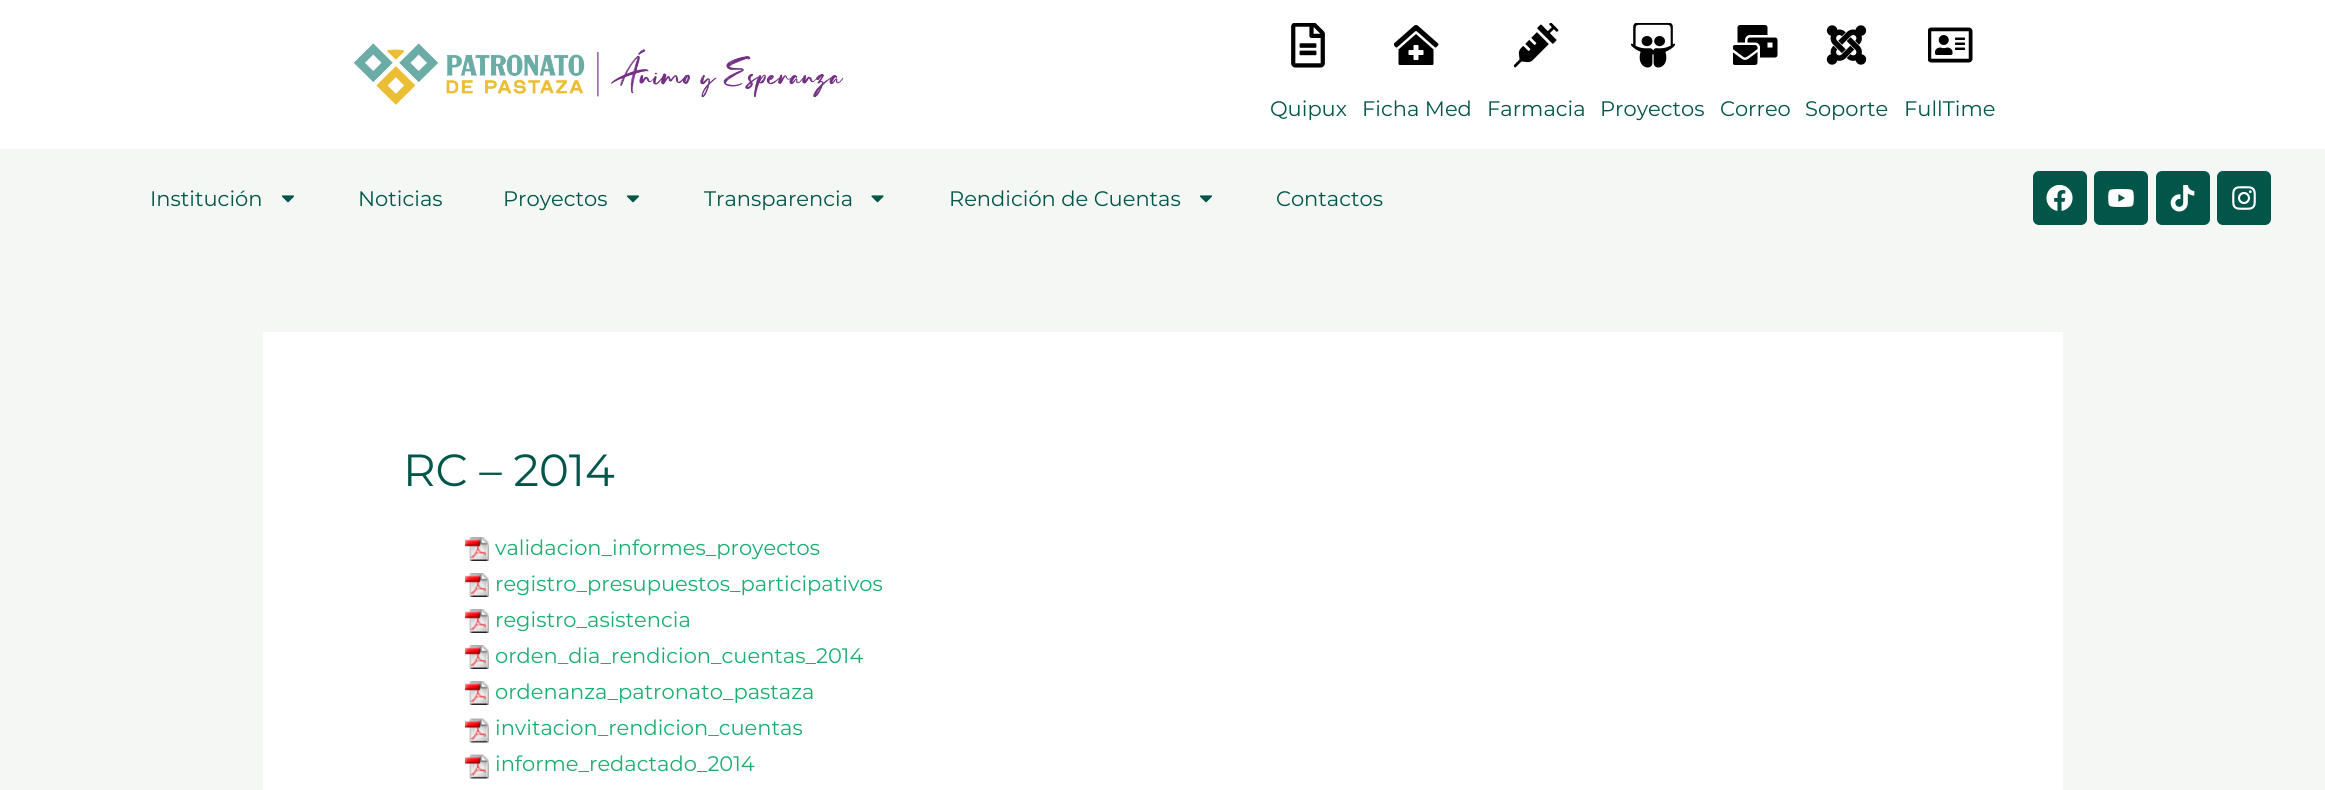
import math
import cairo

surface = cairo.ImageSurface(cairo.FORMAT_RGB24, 2325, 790)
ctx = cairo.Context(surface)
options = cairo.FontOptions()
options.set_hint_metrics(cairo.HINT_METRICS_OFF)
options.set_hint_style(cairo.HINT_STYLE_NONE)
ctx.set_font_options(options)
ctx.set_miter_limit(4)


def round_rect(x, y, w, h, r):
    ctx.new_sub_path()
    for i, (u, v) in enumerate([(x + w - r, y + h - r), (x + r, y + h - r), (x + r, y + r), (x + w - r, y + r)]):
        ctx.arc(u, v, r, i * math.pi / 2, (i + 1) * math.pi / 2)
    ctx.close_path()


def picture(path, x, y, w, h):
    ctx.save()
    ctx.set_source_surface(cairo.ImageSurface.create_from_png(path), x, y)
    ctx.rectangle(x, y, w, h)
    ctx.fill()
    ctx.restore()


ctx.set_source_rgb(0.957, 0.965, 0.957)
ctx.paint()
ctx.set_source_rgb(1, 1, 1)
ctx.rectangle(0, 0, 2325, 149)
ctx.fill()
picture("img1.png", 354, 43, 490, 62)
picture("img2.png", 1291, 23, 34, 45)
ctx.select_font_face("Montserrat")
ctx.set_font_size(21)
ctx.set_source_rgb(0.004, 0.337, 0.286)
ctx.move_to(1270, 116)
ctx.show_text("Quipux")
picture("img3.png", 1394, 25, 45, 40)
ctx.move_to(1362, 116)
ctx.show_text("Ficha Med")
picture("img4.png", 1514, 23, 45, 45)
ctx.move_to(1487, 116)
ctx.show_text("Farmacia")
picture("img5.png", 1631, 23, 44, 45)
ctx.move_to(1600, 116)
ctx.show_text("Proyectos")
picture("img6.png", 1733, 25, 45, 40)
ctx.move_to(1720, 116)
ctx.show_text("Correo")
picture("img7.png", 1826, 25, 41, 40)
ctx.move_to(1805, 116)
ctx.show_text("Soporte")
picture("img8.png", 1928, 27, 45, 36)
ctx.move_to(1904, 116)
ctx.show_text("FullTime")
ctx.move_to(150, 206)
ctx.show_text("Institución")
picture("img9.png", 281, 195, 14, 8)
ctx.move_to(358, 206)
ctx.show_text("Noticias")
ctx.move_to(503, 206)
ctx.show_text("Proyectos")
picture("img9.png", 626, 195, 14, 8)
ctx.move_to(704, 206)
ctx.show_text("Transparencia")
picture("img10.png", 871, 195, 13, 8)
ctx.move_to(949, 206)
ctx.show_text("Rendición de Cuentas")
picture("img9.png", 1199, 195, 14, 8)
ctx.move_to(1276, 206)
ctx.show_text("Contactos")
round_rect(2033, 171, 54, 54, 6)
ctx.fill()
picture("img11.png", 2046, 185, 27, 26)
round_rect(2094, 171, 54, 54, 6)
ctx.fill()
picture("img12.png", 2108, 189, 26, 18)
round_rect(2156, 171, 54, 54, 6)
ctx.fill()
picture("img13.png", 2170, 185, 25, 27)
round_rect(2217, 171, 54, 54, 6)
ctx.fill()
picture("img14.png", 2232, 186, 24, 24)
ctx.set_source_rgb(1, 1, 1)
ctx.rectangle(263, 332, 1800, 458)
ctx.fill()
ctx.set_font_size(45)
ctx.set_source_rgb(0.004, 0.337, 0.286)
ctx.move_to(403, 486)
ctx.show_text("RC – 2014")
picture("img15.png", 465, 537, 24, 24)
ctx.set_font_size(21)
ctx.set_source_rgb(0.106, 0.682, 0.439)
ctx.move_to(495, 555)
ctx.show_text("validacion_informes_proyectos")
picture("img15.png", 465, 573, 24, 24)
ctx.move_to(495, 591)
ctx.show_text("registro_presupuestos_participativos")
picture("img15.png", 465, 609, 24, 24)
ctx.move_to(495, 627)
ctx.show_text("registro_asistencia")
picture("img15.png", 465, 645, 24, 24)
ctx.move_to(495, 663)
ctx.show_text("orden_dia_rendicion_cuentas_2014")
picture("img15.png", 465, 681, 24, 24)
ctx.move_to(495, 699)
ctx.show_text("ordenanza_patronato_pastaza")
picture("img16.png", 465, 718, 24, 25)
ctx.move_to(495, 735)
ctx.show_text("invitacion_rendicion_cuentas")
picture("img16.png", 465, 754, 24, 25)
ctx.move_to(495, 771)
ctx.show_text("informe_redactado_2014")
surface.write_to_png("page.png")
